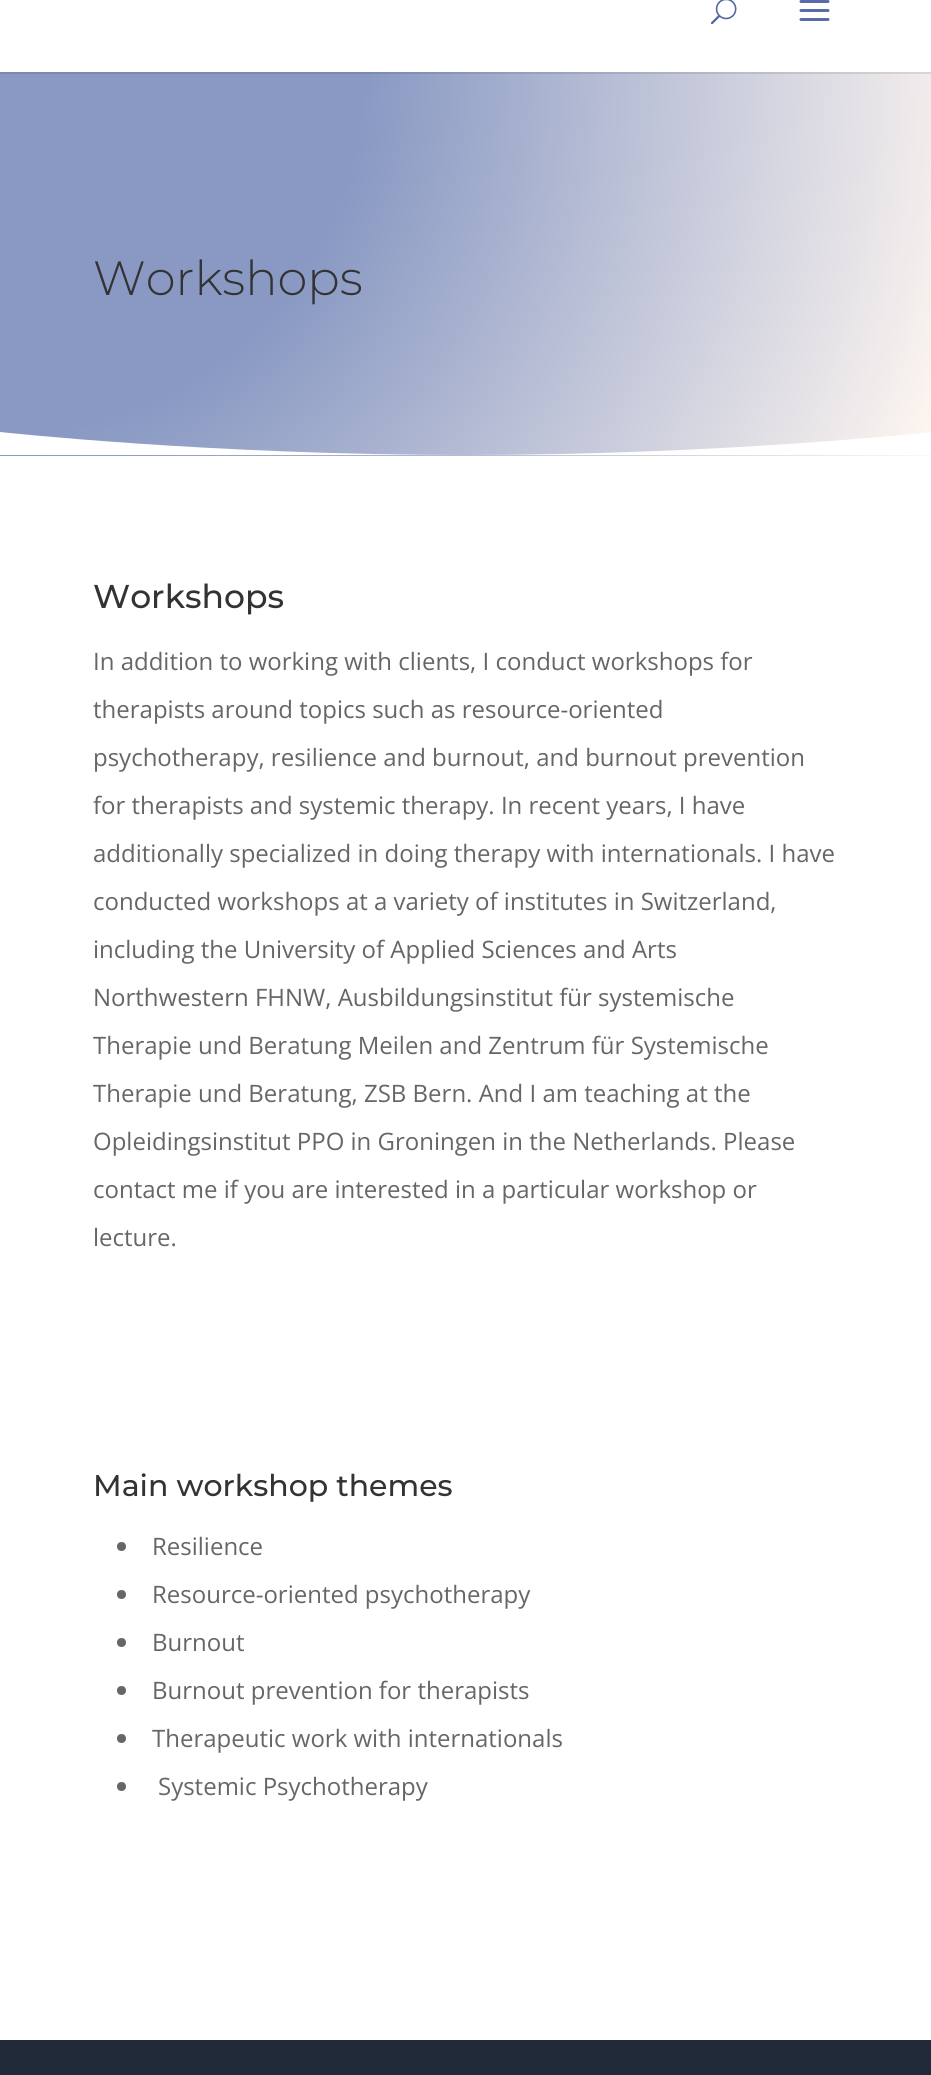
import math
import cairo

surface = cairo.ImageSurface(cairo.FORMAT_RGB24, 931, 2075)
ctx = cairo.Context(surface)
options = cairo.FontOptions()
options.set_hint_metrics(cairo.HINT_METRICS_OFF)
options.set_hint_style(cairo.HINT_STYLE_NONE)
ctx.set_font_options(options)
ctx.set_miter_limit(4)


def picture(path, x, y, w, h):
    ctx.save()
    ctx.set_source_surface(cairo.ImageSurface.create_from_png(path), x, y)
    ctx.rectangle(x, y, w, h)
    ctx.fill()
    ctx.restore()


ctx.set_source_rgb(1, 1, 1)
ctx.paint()
gradient = cairo.RadialGradient(0, 71, 0, 0, 71, 1008)
gradient.add_color_stop_rgba(0.36, 0.537, 0.6, 0.765, 1)
gradient.add_color_stop_rgba(1, 1, 0.969, 0.945, 1)
ctx.set_source(gradient)
ctx.rectangle(0, 72, 931, 384)
ctx.fill()
ctx.set_source_rgba(0, 0, 0, 0.1)
ctx.new_path()
ctx.move_to(0, 72)
ctx.line_to(0, 74)
ctx.line_to(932, 74)
ctx.line_to(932, -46)
ctx.line_to(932, 72)
ctx.close_path()
ctx.fill()
picture("img1.png", 710, 0, 27, 25)
picture("img2.png", 799, 0, 31, 21)
ctx.select_font_face("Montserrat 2 Thin")
ctx.set_font_size(48)
ctx.set_source_rgb(0.2, 0.2, 0.2)
ctx.move_to(93, 295)
ctx.show_text("Workshops")
ctx.set_source_rgb(1, 1, 1)
ctx.new_path()
ctx.move_to(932, 455)
ctx.line_to(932, 432)
ctx.curve_to(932, 432, 723, 455, 466, 455)
ctx.curve_to(209, 455, 0, 432, 0, 432)
ctx.line_to(0, 455)
ctx.close_path()
ctx.fill()
ctx.select_font_face("Montserrat Thin")
ctx.set_font_size(33)
ctx.set_source_rgb(0.2, 0.2, 0.2)
ctx.move_to(93, 608)
ctx.show_text("Workshops")
ctx.select_font_face("Open Sans")
ctx.set_font_size(24)
ctx.set_source_rgb(0.4, 0.4, 0.4)
ctx.move_to(93, 670)
ctx.show_text("In addition to working with clients, I conduct workshops for")
ctx.move_to(93, 718)
ctx.show_text("therapists around topics such as resource-oriented")
ctx.move_to(93, 766)
ctx.show_text("psychotherapy, resilience and burnout, and burnout prevention")
ctx.move_to(93, 814)
ctx.show_text("for therapists and systemic therapy. In recent years, I have")
ctx.move_to(93, 862)
ctx.show_text("additionally specialized in doing therapy with internationals. I have")
ctx.move_to(93, 910)
ctx.show_text("conducted workshops at a variety of institutes in Switzerland,")
ctx.move_to(93, 958)
ctx.show_text("including the University of Applied Sciences and Arts")
ctx.move_to(93, 1006)
ctx.show_text("Northwestern FHNW, Ausbildungsinstitut für systemische")
ctx.move_to(93, 1054)
ctx.show_text("Therapie und Beratung Meilen and Zentrum für Systemische")
ctx.move_to(93, 1102)
ctx.show_text("Therapie und Beratung, ZSB Bern. And I am teaching at the")
ctx.move_to(93, 1150)
ctx.show_text("Opleidingsinstitut PPO in Groningen in the Netherlands. Please")
ctx.move_to(93, 1198)
ctx.show_text("contact me if you are interested in a particular workshop or")
ctx.move_to(93, 1246)
ctx.show_text("lecture.")
ctx.select_font_face("Montserrat Thin")
ctx.set_font_size(30)
ctx.set_source_rgb(0.2, 0.2, 0.2)
ctx.move_to(93, 1496)
ctx.show_text("Main workshop themes")
ctx.set_source_rgb(0.4, 0.4, 0.4)
ctx.new_path()
ctx.arc(121.5, 1546.5, 4.5, 0, 2 * math.pi)
ctx.fill()
ctx.select_font_face("Open Sans")
ctx.set_font_size(24)
ctx.move_to(152, 1555)
ctx.show_text("Resilience")
ctx.new_path()
ctx.arc(121.5, 1594.5, 4.5, 0, 2 * math.pi)
ctx.fill()
ctx.move_to(152, 1603)
ctx.show_text("Resource-oriented psychotherapy")
ctx.new_path()
ctx.arc(121.5, 1642.5, 4.5, 0, 2 * math.pi)
ctx.fill()
ctx.move_to(152, 1651)
ctx.show_text("Burnout")
ctx.new_path()
ctx.arc(121.5, 1690.5, 4.5, 0, 2 * math.pi)
ctx.fill()
ctx.move_to(152, 1699)
ctx.show_text("Burnout prevention for therapists")
ctx.new_path()
ctx.arc(121.5, 1738.5, 4.5, 0, 2 * math.pi)
ctx.fill()
ctx.move_to(152, 1747)
ctx.show_text("Therapeutic work with internationals")
ctx.new_path()
ctx.arc(121.5, 1786.5, 4.5, 0, 2 * math.pi)
ctx.fill()
ctx.move_to(158, 1795)
ctx.show_text("Systemic Psychotherapy")
ctx.set_source_rgb(0.129, 0.165, 0.22)
ctx.rectangle(0, 2040, 931, 35)
ctx.fill()
surface.write_to_png("page.png")
